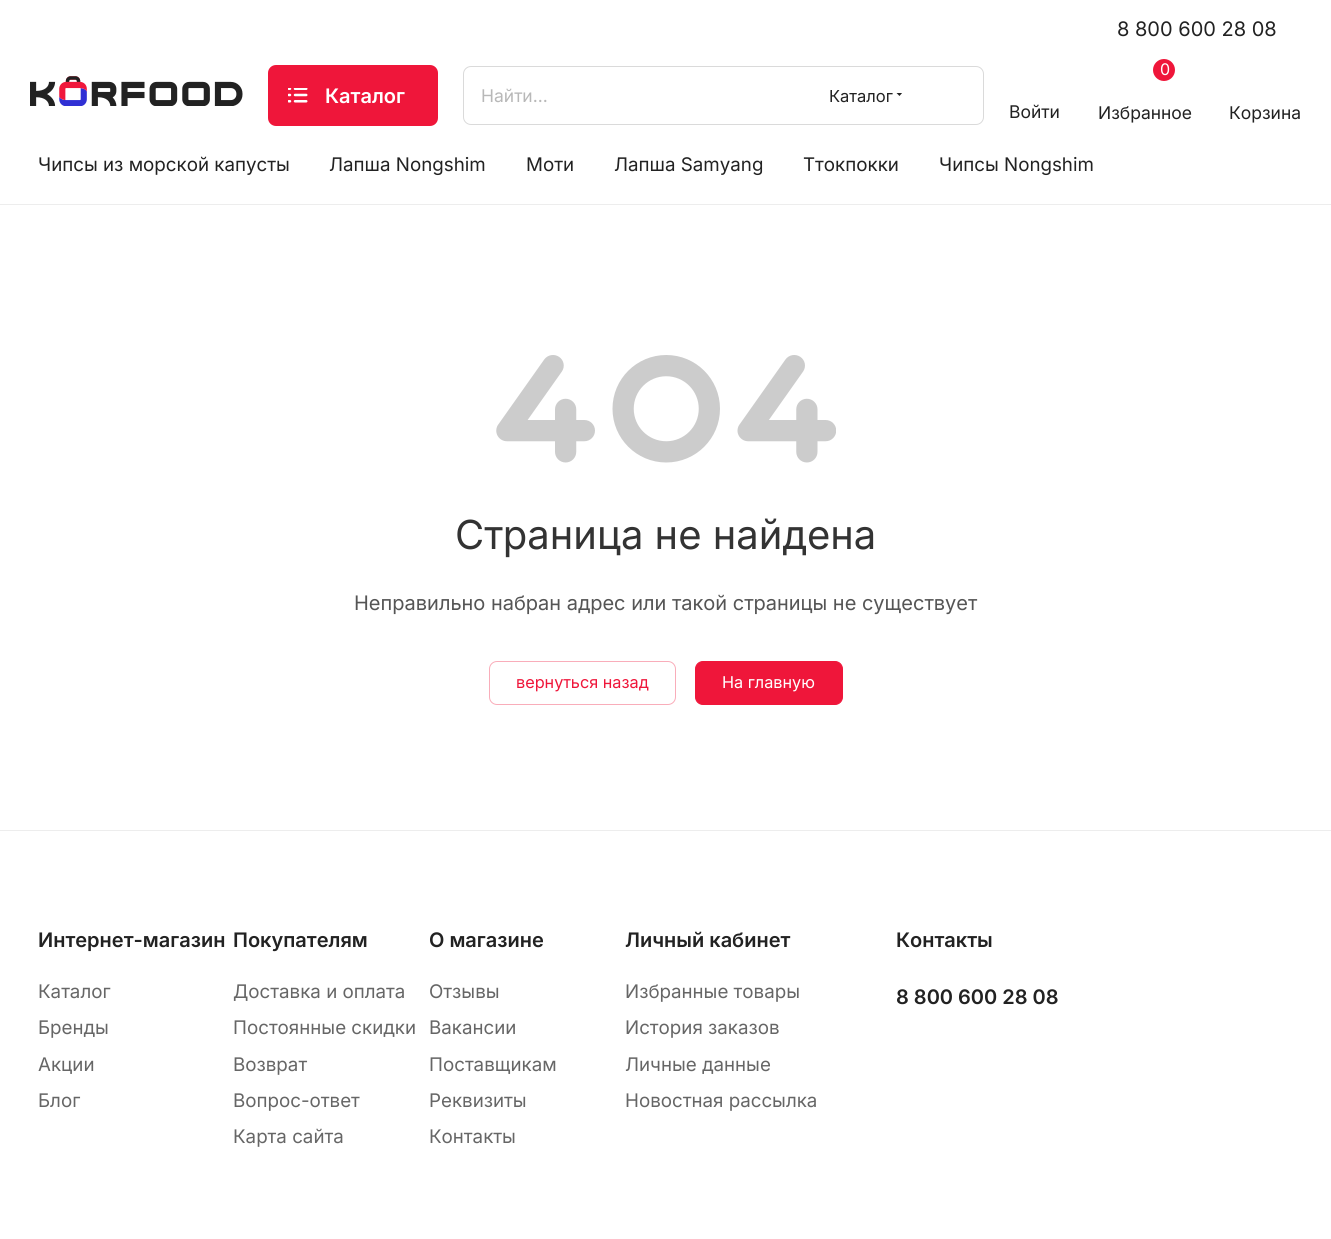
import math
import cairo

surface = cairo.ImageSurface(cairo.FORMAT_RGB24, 1331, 1239)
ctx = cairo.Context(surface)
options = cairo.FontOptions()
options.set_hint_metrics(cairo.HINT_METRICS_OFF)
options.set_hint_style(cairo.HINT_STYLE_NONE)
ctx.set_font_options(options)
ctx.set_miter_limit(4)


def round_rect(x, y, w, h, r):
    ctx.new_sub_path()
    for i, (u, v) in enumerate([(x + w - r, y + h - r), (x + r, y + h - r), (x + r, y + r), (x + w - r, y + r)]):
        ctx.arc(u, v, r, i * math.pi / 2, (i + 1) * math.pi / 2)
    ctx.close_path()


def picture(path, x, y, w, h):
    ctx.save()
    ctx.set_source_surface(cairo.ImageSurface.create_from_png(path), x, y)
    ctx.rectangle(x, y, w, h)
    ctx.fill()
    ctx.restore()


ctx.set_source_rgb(1, 1, 1)
ctx.paint()
ctx.set_source_rgb(0.929, 0.929, 0.929)
ctx.rectangle(0, 204, 1331, 1)
ctx.fill()
ctx.select_font_face("Inter")
ctx.set_font_size(20)
ctx.set_source_rgb(0.133, 0.133, 0.133)
ctx.move_to(1117, 36)
ctx.show_text("8 800 600 28 08")
picture("img1.png", 30, 76, 213, 30)
ctx.set_source_rgb(0.937, 0.086, 0.227)
round_rect(268, 65, 170, 61, 8)
ctx.fill()
picture("img2.png", 288, 88, 20, 15)
ctx.select_font_face("Inter SemiBold")
ctx.set_source_rgb(1, 1, 1)
ctx.move_to(325, 103)
ctx.show_text("Каталог")
round_rect(463.5, 66.5, 520, 58, 7.5)
ctx.set_source_rgb(0.855, 0.855, 0.855)
ctx.set_line_width(1)
ctx.stroke()
ctx.select_font_face("Inter")
ctx.set_font_size(17.5)
ctx.set_source_rgb(0.722, 0.722, 0.722)
ctx.move_to(481, 102)
ctx.show_text("Найти...")
ctx.set_font_size(16.5)
ctx.set_source_rgb(0.133, 0.133, 0.133)
ctx.move_to(829, 102)
ctx.show_text("Каталог")
ctx.save()
ctx.rectangle(896, 93, 7, 4)
ctx.clip()
ctx.set_fill_rule(cairo.FILL_RULE_EVEN_ODD)
ctx.new_path()
ctx.move_to(896, 92.5)
ctx.line_to(902.5, 92.5)
ctx.line_to(899.5, 96)
ctx.close_path()
ctx.fill()
ctx.restore()
ctx.set_font_size(17.5)
ctx.move_to(1009, 118)
ctx.show_text("Войти")
ctx.set_source_rgb(0.937, 0.086, 0.227)
ctx.new_path()
ctx.arc(1164, 70, 11, 0, 2 * math.pi)
ctx.fill()
ctx.set_font_size(16)
ctx.set_source_rgb(1, 1, 1)
ctx.move_to(1160, 75)
ctx.show_text("0")
ctx.set_font_size(17.5)
ctx.set_source_rgb(0.133, 0.133, 0.133)
ctx.move_to(1098, 119)
ctx.show_text("Избранное")
ctx.move_to(1229, 119)
ctx.show_text("Корзина")
ctx.set_font_size(18.75)
ctx.move_to(38, 171)
ctx.show_text("Чипсы из морской капусты")
ctx.move_to(329, 171)
ctx.show_text("Лапша Nongshim")
ctx.move_to(526, 171)
ctx.show_text("Моти")
ctx.move_to(614, 171)
ctx.show_text("Лапша Samyang")
ctx.move_to(803, 171)
ctx.show_text("Ттокпокки")
ctx.move_to(939, 171)
ctx.show_text("Чипсы Nongshim")
picture("img3.png", 496, 355, 340, 108)
ctx.set_font_size(40)
ctx.set_source_rgb(0.2, 0.2, 0.2)
ctx.move_to(455, 549)
ctx.show_text("Страница не найдена")
ctx.set_font_size(20)
ctx.set_source_rgb(0.333, 0.333, 0.333)
ctx.move_to(354, 610)
ctx.show_text("Неправильно набран адрес или такой страницы не существует")
round_rect(489.5, 661.5, 186, 43, 7.5)
ctx.set_source_rgb(0.976, 0.678, 0.729)
ctx.stroke()
ctx.set_font_size(16.25)
ctx.set_source_rgb(0.937, 0.086, 0.227)
ctx.move_to(516, 688)
ctx.show_text("вернуться назад")
round_rect(695.5, 661.5, 147, 43, 7.5)
ctx.fill_preserve()
ctx.stroke()
ctx.set_source_rgb(1, 1, 1)
ctx.move_to(722, 688)
ctx.show_text("На главную")
ctx.set_source_rgb(0.929, 0.929, 0.929)
ctx.rectangle(0, 830, 1331, 1)
ctx.fill()
ctx.select_font_face("Inter SemiBold")
ctx.set_font_size(20)
ctx.set_source_rgb(0.133, 0.133, 0.133)
ctx.move_to(38, 947)
ctx.show_text("Интернет-магазин")
ctx.select_font_face("Inter")
ctx.set_font_size(18.75)
ctx.set_source_rgb(0.4, 0.4, 0.4)
ctx.move_to(38, 998)
ctx.show_text("Каталог")
ctx.move_to(38, 1034)
ctx.show_text("Бренды")
ctx.move_to(38, 1071)
ctx.show_text("Акции")
ctx.move_to(38, 1107)
ctx.show_text("Блог")
ctx.select_font_face("Inter SemiBold")
ctx.set_font_size(20)
ctx.set_source_rgb(0.133, 0.133, 0.133)
ctx.move_to(233, 947)
ctx.show_text("Покупателям")
ctx.select_font_face("Inter")
ctx.set_font_size(18.75)
ctx.set_source_rgb(0.4, 0.4, 0.4)
ctx.move_to(233, 998)
ctx.show_text("Доставка и оплата")
ctx.move_to(233, 1034)
ctx.show_text("Постоянные скидки")
ctx.move_to(233, 1071)
ctx.show_text("Возврат")
ctx.move_to(233, 1107)
ctx.show_text("Вопрос-ответ")
ctx.move_to(233, 1143)
ctx.show_text("Карта сайта")
ctx.select_font_face("Inter SemiBold")
ctx.set_font_size(20)
ctx.set_source_rgb(0.133, 0.133, 0.133)
ctx.move_to(429, 947)
ctx.show_text("О магазине")
ctx.select_font_face("Inter")
ctx.set_font_size(18.75)
ctx.set_source_rgb(0.4, 0.4, 0.4)
ctx.move_to(429, 998)
ctx.show_text("Отзывы")
ctx.move_to(429, 1034)
ctx.show_text("Вакансии")
ctx.move_to(429, 1071)
ctx.show_text("Поставщикам")
ctx.move_to(429, 1107)
ctx.show_text("Реквизиты")
ctx.move_to(429, 1143)
ctx.show_text("Контакты")
ctx.select_font_face("Inter SemiBold")
ctx.set_font_size(20)
ctx.set_source_rgb(0.133, 0.133, 0.133)
ctx.move_to(625, 947)
ctx.show_text("Личный кабинет")
ctx.select_font_face("Inter")
ctx.set_font_size(18.75)
ctx.set_source_rgb(0.4, 0.4, 0.4)
ctx.move_to(625, 998)
ctx.show_text("Избранные товары")
ctx.move_to(625, 1034)
ctx.show_text("История заказов")
ctx.move_to(625, 1071)
ctx.show_text("Личные данные")
ctx.move_to(625, 1107)
ctx.show_text("Новостная рассылка")
ctx.select_font_face("Inter SemiBold")
ctx.set_font_size(20)
ctx.set_source_rgb(0.133, 0.133, 0.133)
ctx.move_to(896, 947)
ctx.show_text("Контакты")
ctx.move_to(896, 1004)
ctx.show_text("8 800 600 28 08")
surface.write_to_png("page.png")
